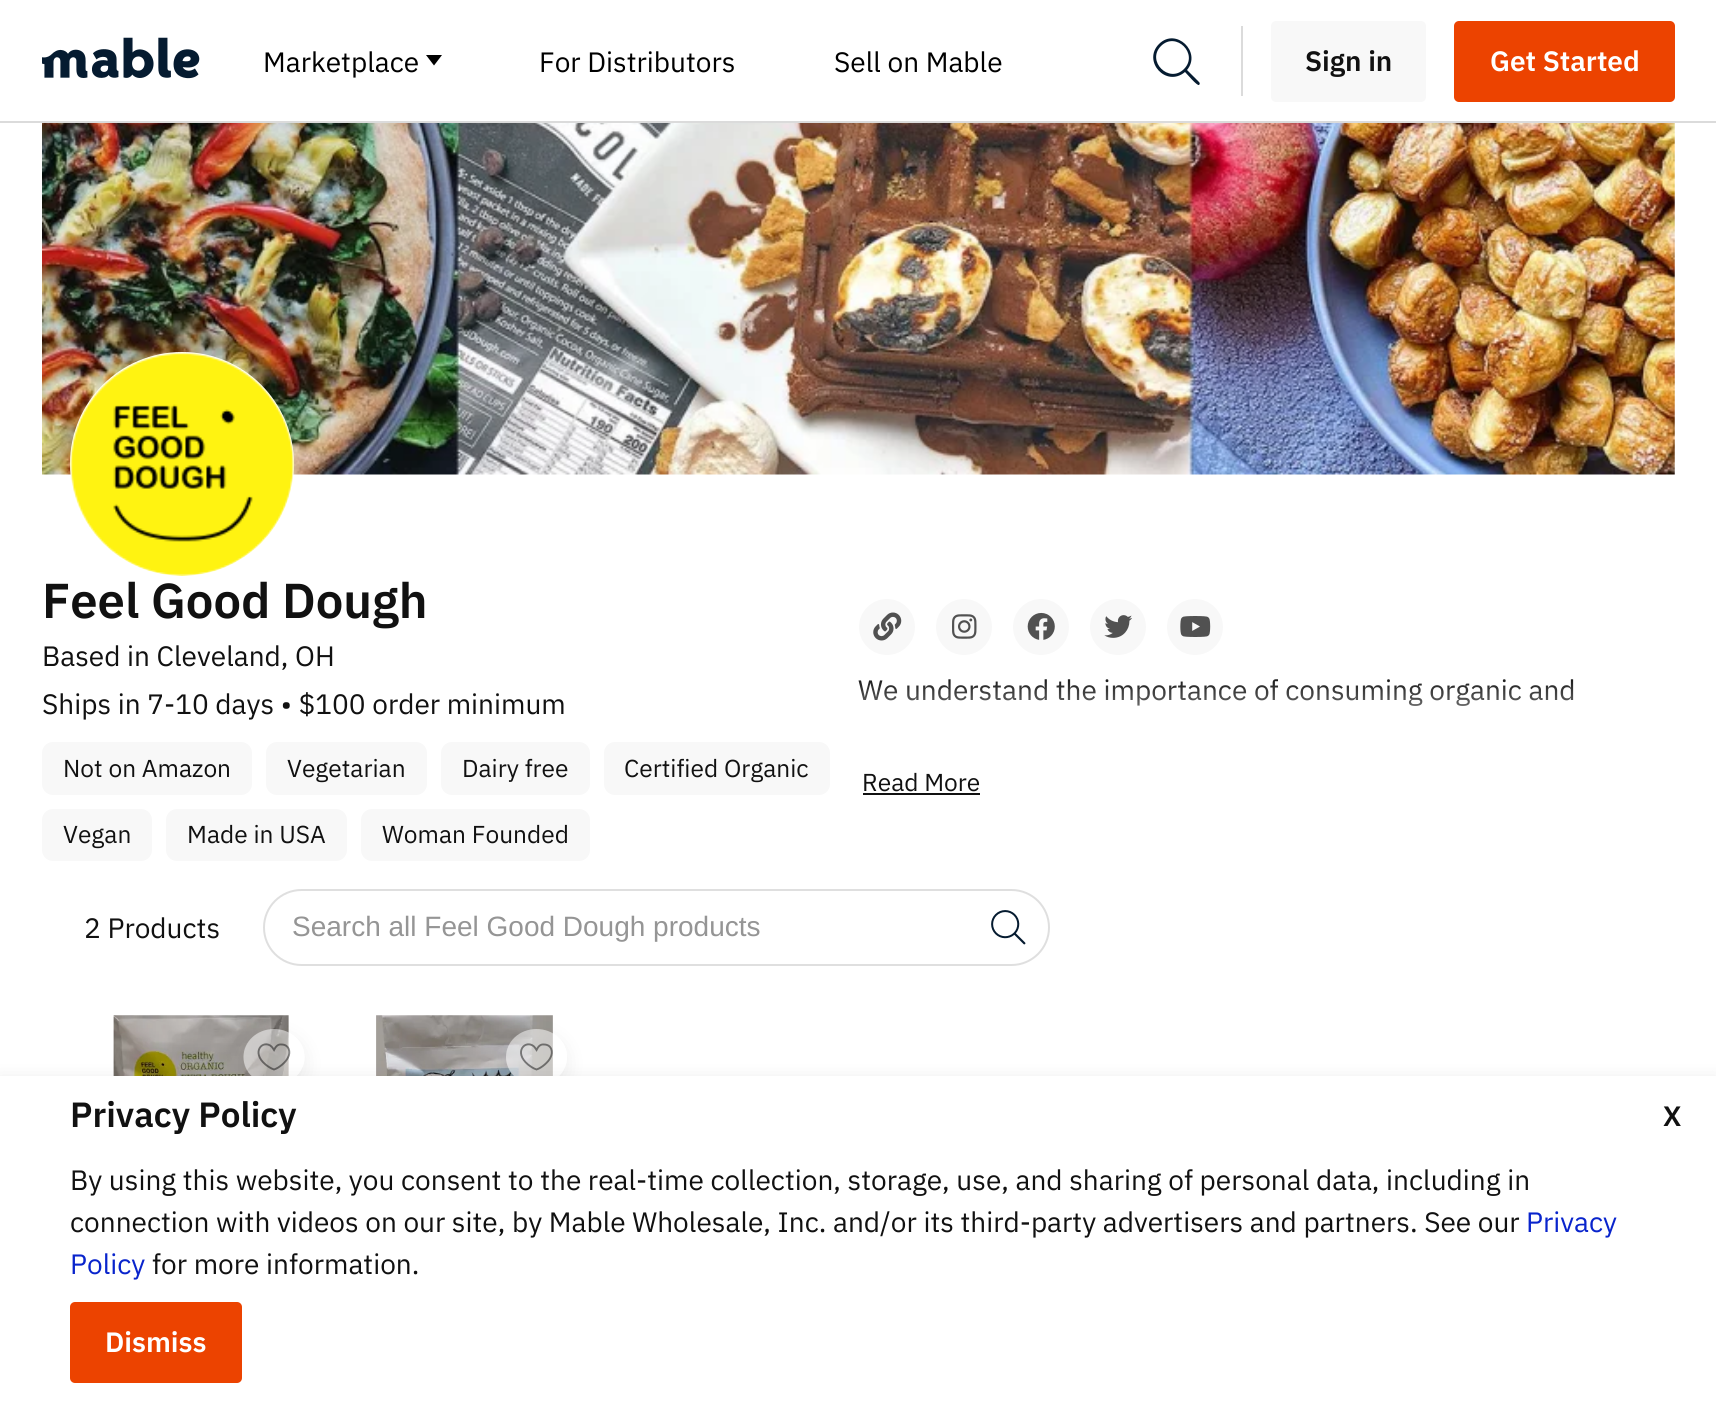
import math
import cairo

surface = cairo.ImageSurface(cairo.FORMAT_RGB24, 1716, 1410)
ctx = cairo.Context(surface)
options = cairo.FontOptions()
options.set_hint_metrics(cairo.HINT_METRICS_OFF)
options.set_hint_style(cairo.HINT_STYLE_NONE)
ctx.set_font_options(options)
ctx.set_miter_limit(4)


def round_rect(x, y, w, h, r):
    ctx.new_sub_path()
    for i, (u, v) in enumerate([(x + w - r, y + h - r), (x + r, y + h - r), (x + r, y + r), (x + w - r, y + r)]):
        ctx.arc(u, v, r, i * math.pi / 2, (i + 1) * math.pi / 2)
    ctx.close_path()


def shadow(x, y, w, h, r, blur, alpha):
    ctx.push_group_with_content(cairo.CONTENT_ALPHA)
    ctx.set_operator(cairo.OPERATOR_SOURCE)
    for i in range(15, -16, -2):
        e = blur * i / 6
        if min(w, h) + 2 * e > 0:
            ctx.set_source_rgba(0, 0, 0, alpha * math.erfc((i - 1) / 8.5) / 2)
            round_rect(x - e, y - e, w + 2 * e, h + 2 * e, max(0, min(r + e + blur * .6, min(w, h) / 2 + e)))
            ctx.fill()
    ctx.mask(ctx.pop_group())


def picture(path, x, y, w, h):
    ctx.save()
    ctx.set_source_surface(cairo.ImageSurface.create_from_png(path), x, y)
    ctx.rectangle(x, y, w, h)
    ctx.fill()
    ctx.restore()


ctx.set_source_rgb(1, 1, 1)
ctx.paint()
ctx.set_source_rgb(0.859, 0.859, 0.859)
ctx.rectangle(0, 121, 1716, 2)
ctx.fill()
picture("img1.png", 42, 37, 158, 42)
ctx.select_font_face("IBM Plex Sans")
ctx.set_font_size(28)
ctx.set_source_rgb(0, 0, 0)
ctx.move_to(263, 72)
ctx.show_text("Marketplace")
ctx.set_fill_rule(cairo.FILL_RULE_EVEN_ODD)
ctx.new_path()
ctx.move_to(434, 65.5)
ctx.line_to(426, 55)
ctx.line_to(442, 55)
ctx.close_path()
ctx.fill()
ctx.move_to(539, 72)
ctx.show_text("For Distributors")
ctx.move_to(834, 72)
ctx.show_text("Sell on Mable")
ctx.set_source_rgb(0.02, 0.106, 0.188)
ctx.new_path()
ctx.move_to(1159, 44)
ctx.curve_to(1176, 27, 1202, 52, 1187, 70)
ctx.line_to(1199, 82)
ctx.curve_to(1200, 83, 1200, 84, 1199, 85)
ctx.curve_to(1197, 86, 1187, 74, 1185, 72)
ctx.curve_to(1166, 88, 1142, 61, 1159, 44)
ctx.close_path()
ctx.move_to(1161, 46)
ctx.curve_to(1146, 61, 1169, 84, 1184, 69)
ctx.curve_to(1199, 54, 1176, 31, 1161, 46)
ctx.close_path()
ctx.fill()
ctx.set_source_rgb(0.859, 0.859, 0.859)
ctx.rectangle(1241, 26, 2, 70)
ctx.fill()
ctx.set_source_rgb(0.969, 0.969, 0.969)
round_rect(1271, 21, 155, 81, 5)
ctx.fill()
ctx.select_font_face("IBM Plex Sans SemiBold")
ctx.set_source_rgb(0.067, 0.067, 0.067)
ctx.move_to(1305, 71)
ctx.show_text("Sign in")
ctx.set_source_rgb(0.925, 0.263, 0)
round_rect(1454, 21, 221, 81, 5)
ctx.fill()
ctx.set_source_rgb(1, 1, 1)
ctx.move_to(1490, 71)
ctx.show_text("Get Started")
picture("img2.png", 42, 123, 1633, 352)
ctx.arc(182, 464, 112, 0, 2 * math.pi)
ctx.fill()
picture("img3.png", 70, 352, 224, 224)
ctx.set_font_size(49)
ctx.set_source_rgb(0.067, 0.067, 0.067)
ctx.move_to(42, 618)
ctx.show_text("Feel Good Dough")
ctx.select_font_face("IBM Plex Sans")
ctx.set_font_size(28)
ctx.move_to(42, 666)
ctx.show_text("Based in Cleveland, OH")
ctx.move_to(42, 714)
ctx.show_text("Ships in 7-10 days • $100 order minimum")
ctx.set_source_rgb(0.969, 0.969, 0.969)
round_rect(42, 742, 210, 53, 11)
ctx.fill()
ctx.set_font_size(24.5)
ctx.set_source_rgb(0.067, 0.067, 0.067)
ctx.move_to(63, 777)
ctx.show_text("Not on Amazon")
ctx.set_source_rgb(0.969, 0.969, 0.969)
round_rect(266, 742, 161, 53, 11)
ctx.fill()
ctx.set_source_rgb(0.067, 0.067, 0.067)
ctx.move_to(287, 777)
ctx.show_text("Vegetarian")
ctx.set_source_rgb(0.969, 0.969, 0.969)
round_rect(441, 742, 149, 53, 11)
ctx.fill()
ctx.set_source_rgb(0.067, 0.067, 0.067)
ctx.move_to(462, 777)
ctx.show_text("Dairy free")
ctx.set_source_rgb(0.969, 0.969, 0.969)
round_rect(604, 742, 226, 53, 11)
ctx.fill()
ctx.set_source_rgb(0.067, 0.067, 0.067)
ctx.move_to(624, 777)
ctx.show_text("Certified Organic")
ctx.set_source_rgb(0.969, 0.969, 0.969)
round_rect(42, 809, 110, 52, 11)
ctx.fill()
ctx.set_source_rgb(0.067, 0.067, 0.067)
ctx.move_to(63, 843)
ctx.show_text("Vegan")
ctx.set_source_rgb(0.969, 0.969, 0.969)
round_rect(166, 809, 181, 52, 11)
ctx.fill()
ctx.set_source_rgb(0.067, 0.067, 0.067)
ctx.move_to(187, 843)
ctx.show_text("Made in USA")
ctx.set_source_rgb(0.969, 0.969, 0.969)
round_rect(361, 809, 229, 52, 11)
ctx.fill()
ctx.set_source_rgb(0.067, 0.067, 0.067)
ctx.move_to(382, 843)
ctx.show_text("Woman Founded")
ctx.set_source_rgb(0.969, 0.969, 0.969)
ctx.new_path()
ctx.arc(887, 627, 28, 0, 2 * math.pi)
ctx.fill()
picture("img4.png", 873, 612, 29, 29)
ctx.arc(964, 627, 28, 0, 2 * math.pi)
ctx.fill()
picture("img5.png", 952, 614, 25, 25)
ctx.arc(1041, 627, 28, 0, 2 * math.pi)
ctx.fill()
picture("img6.png", 1027, 612, 28, 28)
ctx.arc(1118, 627, 28, 0, 2 * math.pi)
ctx.fill()
picture("img7.png", 1104, 615, 28, 23)
ctx.arc(1195, 627, 28, 0, 2 * math.pi)
ctx.fill()
picture("img8.png", 1180, 616, 31, 21)
ctx.set_font_size(28)
ctx.set_source_rgb(0.067, 0.067, 0.067)
ctx.move_to(858, 700)
ctx.show_text("We understand the importance of consuming organic and")
gradient = cairo.LinearGradient(1267, 676, 1267, 760)
gradient.add_color_stop_rgba(0, 1, 1, 1, 0)
gradient.add_color_stop_rgba(1, 1, 1, 1, 1)
ctx.set_source(gradient)
ctx.rectangle(859, 679, 715, 27)
ctx.fill()
ctx.set_font_size(24.5)
ctx.set_source_rgb(0.067, 0.067, 0.067)
ctx.move_to(862, 791)
ctx.show_text("Read More")
ctx.rectangle(863, 793, 117, 2)
ctx.fill()
ctx.set_font_size(28)
ctx.move_to(84, 938)
ctx.show_text("2 Products")
round_rect(264, 890, 785, 75, 37.5)
ctx.set_source_rgb(0.875, 0.875, 0.875)
ctx.stroke()
ctx.select_font_face("Liberation Sans")
ctx.set_source_rgb(0.584, 0.584, 0.584)
ctx.move_to(292, 936)
ctx.show_text("Search all Feel Good Dough products")
picture("img9.png", 991, 910, 35, 35)
picture("img10.png", 113, 1015, 176, 61)
ctx.save()
ctx.new_path()
ctx.move_to(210, 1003)
ctx.line_to(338, 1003)
ctx.line_to(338, 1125)
ctx.line_to(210, 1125)
ctx.close_path()
ctx.move_to(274, 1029)
ctx.curve_to(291, 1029, 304.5, 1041.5, 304.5, 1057)
ctx.curve_to(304.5, 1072.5, 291, 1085, 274, 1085)
ctx.curve_to(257, 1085, 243, 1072.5, 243, 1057)
ctx.curve_to(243, 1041.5, 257, 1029, 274, 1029)
ctx.close_path()
ctx.clip()
ctx.set_source_rgb(0, 0, 0)
shadow(243, 1036, 62, 56, 28, 10.5, 0.07)
ctx.restore()
ctx.set_source_rgba(1, 1, 1, 0.5)
ctx.new_path()
ctx.move_to(274, 1029)
ctx.curve_to(291, 1029, 304.5, 1041.5, 304.5, 1057)
ctx.curve_to(304.5, 1072.5, 291, 1085, 274, 1085)
ctx.curve_to(257, 1085, 243.5, 1072.5, 243.5, 1057)
ctx.curve_to(243.5, 1041.5, 257, 1029, 274, 1029)
ctx.close_path()
ctx.fill()
ctx.new_path()
ctx.move_to(281.5, 1044.5)
ctx.curve_to(289, 1044.5, 291, 1052, 288, 1057.5)
ctx.curve_to(286, 1062, 279, 1068, 274, 1069.5)
ctx.curve_to(271, 1068.5, 268, 1066.5, 265.5, 1064.5)
ctx.curve_to(250.5, 1052, 263, 1039, 271.5, 1046.5)
ctx.curve_to(272.5, 1047.5, 273, 1048.5, 274, 1050)
ctx.curve_to(275.5, 1047, 277.5, 1044, 281.5, 1044.5)
ctx.close_path()
ctx.set_source_rgba(0.067, 0.067, 0.067, 0.5)
ctx.set_line_width(1.9)
ctx.stroke()
picture("img11.png", 376, 1015, 177, 61)
ctx.save()
ctx.new_path()
ctx.move_to(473, 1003)
ctx.line_to(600, 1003)
ctx.line_to(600, 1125)
ctx.line_to(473, 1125)
ctx.close_path()
ctx.move_to(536.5, 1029)
ctx.curve_to(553.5, 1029, 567, 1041.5, 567, 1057)
ctx.curve_to(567, 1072.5, 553.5, 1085, 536.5, 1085)
ctx.curve_to(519.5, 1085, 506, 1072.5, 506, 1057)
ctx.curve_to(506, 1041.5, 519.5, 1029, 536.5, 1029)
ctx.close_path()
ctx.clip()
ctx.set_source_rgb(0, 0, 0)
shadow(506, 1036, 61, 56, 28, 10.5, 0.07)
ctx.restore()
ctx.set_source_rgba(1, 1, 1, 0.5)
ctx.new_path()
ctx.move_to(536.5, 1029)
ctx.curve_to(553.5, 1029, 567, 1041.5, 567, 1057)
ctx.curve_to(567, 1072.5, 553.5, 1085, 536.5, 1085)
ctx.curve_to(519.5, 1085, 506, 1072.5, 506, 1057)
ctx.curve_to(506, 1041.5, 519.5, 1029, 536.5, 1029)
ctx.close_path()
ctx.fill()
ctx.new_path()
ctx.move_to(544, 1044.5)
ctx.curve_to(551.5, 1044.5, 553.5, 1052, 550.5, 1057.5)
ctx.curve_to(548.5, 1062, 541.5, 1068, 536.5, 1069.5)
ctx.curve_to(533.5, 1068.5, 530.5, 1066.5, 528, 1064.5)
ctx.curve_to(513, 1052, 525.5, 1039, 534, 1046.5)
ctx.curve_to(535, 1047.5, 535.5, 1048.5, 536.5, 1050)
ctx.curve_to(538, 1047, 540, 1044, 544, 1044.5)
ctx.close_path()
ctx.set_source_rgba(0.067, 0.067, 0.067, 0.5)
ctx.stroke()
ctx.set_source_rgb(0, 0, 0)
shadow(0, 1083, 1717, 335, 0, 10.5, 0.13)
ctx.set_source_rgb(1, 1, 1)
ctx.rectangle(0, 1076, 1716, 334)
ctx.fill()
ctx.select_font_face("IBM Plex Sans SemiBold")
ctx.set_font_size(35)
ctx.set_source_rgb(0.067, 0.067, 0.067)
ctx.move_to(70, 1127)
ctx.show_text("Privacy Policy")
ctx.select_font_face("IBM Plex Sans")
ctx.set_font_size(28)
ctx.move_to(70, 1190)
ctx.show_text("By using this website, you consent to the real-time collection, storage, use, and sharing of personal data, including in")
ctx.move_to(70, 1232)
ctx.show_text("connection with videos on our site, by Mable Wholesale, Inc. and/or its third-party advertisers and partners. See our")
ctx.set_source_rgb(0.039, 0.141, 0.8)
ctx.move_to(1526, 1232)
ctx.show_text("Privacy")
ctx.move_to(70, 1274)
ctx.show_text("Policy")
ctx.set_source_rgb(0.067, 0.067, 0.067)
ctx.move_to(152, 1274)
ctx.show_text("for more information.")
ctx.set_source_rgb(0.925, 0.263, 0)
round_rect(70, 1302, 172, 81, 5)
ctx.fill()
ctx.select_font_face("IBM Plex Sans SemiBold")
ctx.set_source_rgb(1, 1, 1)
ctx.move_to(105, 1352)
ctx.show_text("Dismiss")
ctx.set_source_rgb(0.067, 0.067, 0.067)
ctx.move_to(1663, 1126)
ctx.show_text("X")
surface.write_to_png("page.png")
